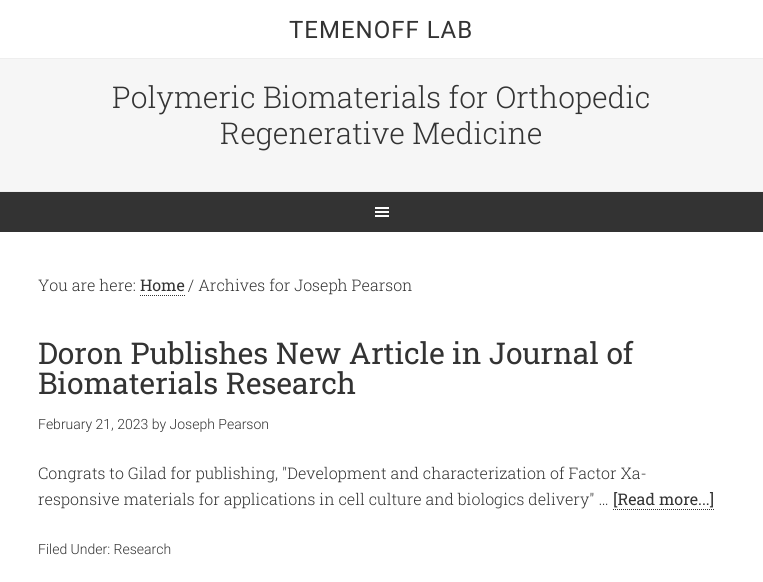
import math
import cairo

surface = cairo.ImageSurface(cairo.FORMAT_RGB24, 763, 582)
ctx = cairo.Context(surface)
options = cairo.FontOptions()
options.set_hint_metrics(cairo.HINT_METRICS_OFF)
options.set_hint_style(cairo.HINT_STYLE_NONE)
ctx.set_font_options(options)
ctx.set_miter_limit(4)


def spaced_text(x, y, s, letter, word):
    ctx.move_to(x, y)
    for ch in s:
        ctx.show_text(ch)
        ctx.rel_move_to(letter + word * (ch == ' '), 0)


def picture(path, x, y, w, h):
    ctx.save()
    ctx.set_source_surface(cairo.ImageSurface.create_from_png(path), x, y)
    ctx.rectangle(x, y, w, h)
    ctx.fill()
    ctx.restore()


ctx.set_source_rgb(1, 1, 1)
ctx.paint()
ctx.set_source_rgb(0.933, 0.933, 0.933)
ctx.rectangle(0, 58, 763, 1)
ctx.fill()
ctx.select_font_face("Roboto")
ctx.set_font_size(24)
ctx.set_source_rgb(0.2, 0.2, 0.2)
spaced_text(289, 38, "TEMENOFF LAB", 1, 0)
ctx.set_source_rgb(0.961, 0.961, 0.961)
ctx.rectangle(0, 59, 763, 132)
ctx.fill()
ctx.set_source_rgb(0.933, 0.933, 0.933)
ctx.rectangle(0, 191, 763, 1)
ctx.fill()
ctx.select_font_face("Roboto Slab Light")
ctx.set_font_size(30)
ctx.set_source_rgb(0.2, 0.2, 0.2)
ctx.move_to(112, 108)
ctx.show_text("Polymeric Biomaterials for Orthopedic")
ctx.move_to(220, 144)
ctx.show_text("Regenerative Medicine")
ctx.rectangle(0, 192, 763, 40)
ctx.fill()
picture("img1.png", 375, 207, 14, 10)
ctx.set_font_size(16)
ctx.move_to(38, 291)
ctx.show_text("You are here:")
ctx.select_font_face("Roboto Slab")
ctx.move_to(140, 291)
ctx.show_text("Home")
ctx.new_path()
ctx.move_to(140, 295.5)
ctx.line_to(185, 295.5)
ctx.set_line_width(1)
ctx.set_dash([1, 1])
ctx.stroke()
ctx.select_font_face("Roboto Slab Light")
ctx.move_to(188, 291)
ctx.show_text("/ Archives for Joseph Pearson")
ctx.select_font_face("Roboto Slab")
ctx.set_font_size(30)
ctx.move_to(38, 364)
ctx.show_text("Doron Publishes New Article in Journal of")
ctx.move_to(38, 394)
ctx.show_text("Biomaterials Research")
ctx.select_font_face("Roboto Light")
ctx.set_font_size(14)
ctx.move_to(38, 429)
ctx.show_text("February 21, 2023 by Joseph Pearson")
ctx.select_font_face("Roboto Slab Light")
ctx.set_font_size(16)
ctx.move_to(38, 479)
ctx.show_text("Congrats to Gilad for publishing, \"Development and characterization of Factor Xa-")
ctx.move_to(38, 505)
ctx.show_text("responsive materials for applications in cell culture and biologics delivery\" …")
ctx.select_font_face("Roboto Slab")
ctx.move_to(613, 505)
ctx.show_text("[Read more...]")
ctx.new_path()
ctx.move_to(613, 509.5)
ctx.line_to(714, 509.5)
ctx.stroke()
ctx.select_font_face("Roboto Light")
ctx.set_font_size(14)
ctx.move_to(38, 554)
ctx.show_text("Filed Under: Research")
surface.write_to_png("page.png")
